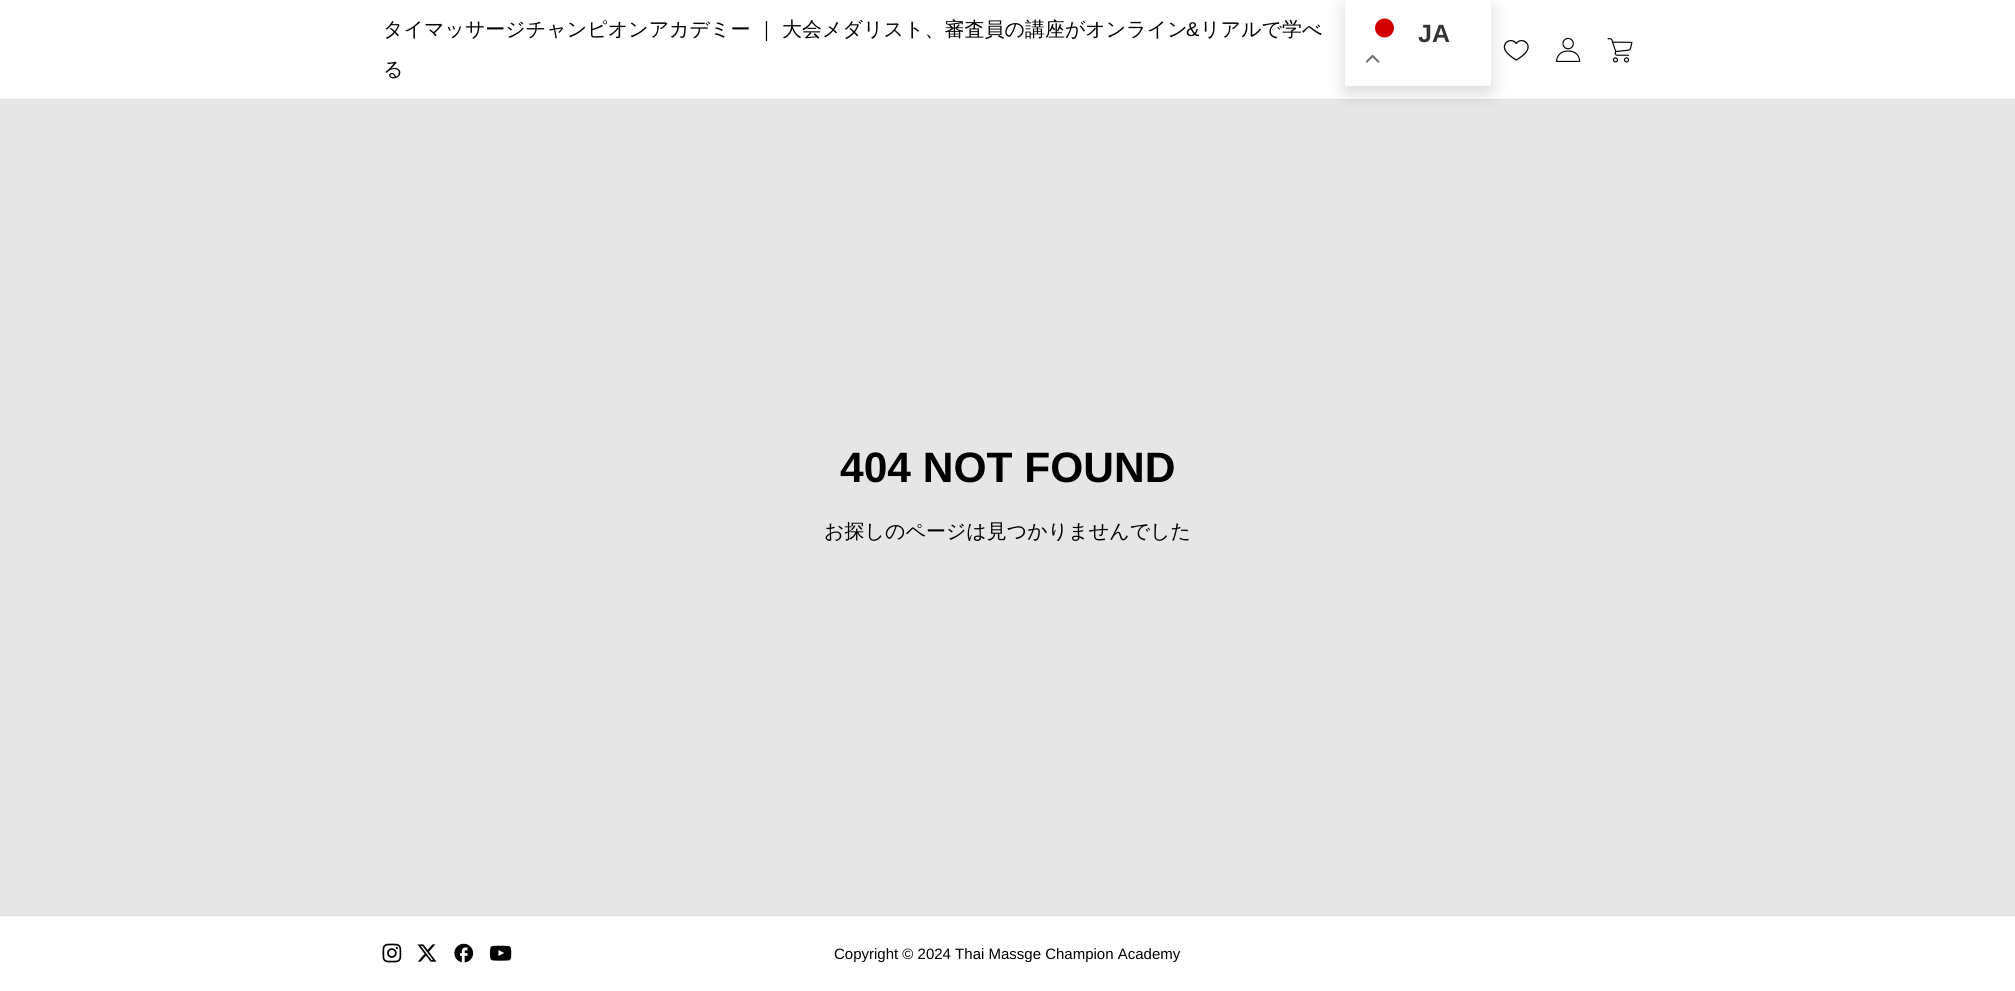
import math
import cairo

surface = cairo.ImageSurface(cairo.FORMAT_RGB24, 2015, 991)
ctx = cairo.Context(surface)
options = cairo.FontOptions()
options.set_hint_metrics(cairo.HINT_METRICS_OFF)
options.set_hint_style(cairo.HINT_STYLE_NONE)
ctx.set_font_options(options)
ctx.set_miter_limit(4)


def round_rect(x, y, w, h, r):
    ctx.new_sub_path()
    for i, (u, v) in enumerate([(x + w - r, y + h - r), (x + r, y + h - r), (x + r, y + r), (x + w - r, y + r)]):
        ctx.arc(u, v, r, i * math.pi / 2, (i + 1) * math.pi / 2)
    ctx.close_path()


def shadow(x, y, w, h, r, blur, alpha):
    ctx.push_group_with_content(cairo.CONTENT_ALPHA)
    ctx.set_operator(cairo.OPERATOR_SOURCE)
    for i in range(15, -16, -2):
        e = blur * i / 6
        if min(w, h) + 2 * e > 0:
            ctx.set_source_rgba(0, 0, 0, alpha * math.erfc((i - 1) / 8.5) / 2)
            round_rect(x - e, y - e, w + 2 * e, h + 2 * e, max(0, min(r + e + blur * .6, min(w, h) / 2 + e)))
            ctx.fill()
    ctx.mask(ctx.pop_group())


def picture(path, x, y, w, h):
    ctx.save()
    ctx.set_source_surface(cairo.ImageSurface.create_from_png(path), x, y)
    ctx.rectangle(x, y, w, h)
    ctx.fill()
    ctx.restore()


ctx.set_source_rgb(1, 1, 1)
ctx.paint()
ctx.set_source_rgb(0.867, 0.867, 0.867)
ctx.rectangle(0, 99, 2015, 1)
ctx.fill()
ctx.select_font_face("WenQuanYi Zen Hei Medium")
ctx.set_font_size(20)
ctx.set_source_rgb(0, 0, 0)
ctx.move_to(383, 36)
ctx.show_text("タイマッサージチャンピオンアカデミー ｜ 大会メダリスト、審査員の講座がオンライン")
ctx.select_font_face("Liberation Sans")
ctx.move_to(1186, 36)
ctx.show_text("&")
ctx.select_font_face("WenQuanYi Zen Hei Medium")
ctx.move_to(1200, 36)
ctx.show_text("リアルで学べ")
ctx.move_to(383, 76)
ctx.show_text("る")
ctx.set_source_rgb(0, 0, 0)
shadow(1345, 6, 146, 87, 2.5, 9.5, 0.15)
ctx.set_source_rgb(1, 1, 1)
round_rect(1345, 0, 146, 86, 2.5)
ctx.fill()
ctx.set_source_rgb(0.827, 0, 0)
ctx.arc(1384.5, 28, 9.5, 0, 2 * math.pi)
ctx.fill()
ctx.select_font_face("Liberation Sans", cairo.FONT_SLANT_NORMAL, cairo.FONT_WEIGHT_BOLD)
ctx.set_font_size(25)
ctx.set_source_rgb(0.2, 0.2, 0.2)
ctx.move_to(1418, 42)
ctx.show_text("JA")
picture("img1.png", 1366, 54, 14, 9)
picture("img2.png", 1503, 40, 26, 21)
picture("img3.png", 1556, 37, 25, 25)
picture("img4.png", 1607, 38, 26, 25)
ctx.set_source_rgba(0, 0, 0, 0.1)
ctx.rectangle(0, 100, 2015, 815)
ctx.fill()
ctx.set_font_size(42.5)
ctx.set_source_rgb(0, 0, 0)
ctx.move_to(840, 482)
ctx.show_text("404 NOT FOUND")
ctx.select_font_face("WenQuanYi Zen Hei Medium")
ctx.set_font_size(20)
ctx.move_to(824, 538)
ctx.show_text("お探しのページは見つかりませんでした")
ctx.set_source_rgb(0.867, 0.867, 0.867)
ctx.rectangle(0, 915, 2015, 1)
ctx.fill()
picture("img5.png", 382, 943, 20, 20)
picture("img6.png", 417, 944, 20, 18)
picture("img7.png", 454, 943, 20, 20)
picture("img8.png", 490, 945, 22, 16)
ctx.select_font_face("Liberation Sans")
ctx.set_font_size(15)
ctx.set_source_rgb(0, 0, 0)
ctx.move_to(834, 959)
ctx.show_text("Copyright © 2024 Thai Massge Champion Academy")
surface.write_to_png("page.png")
